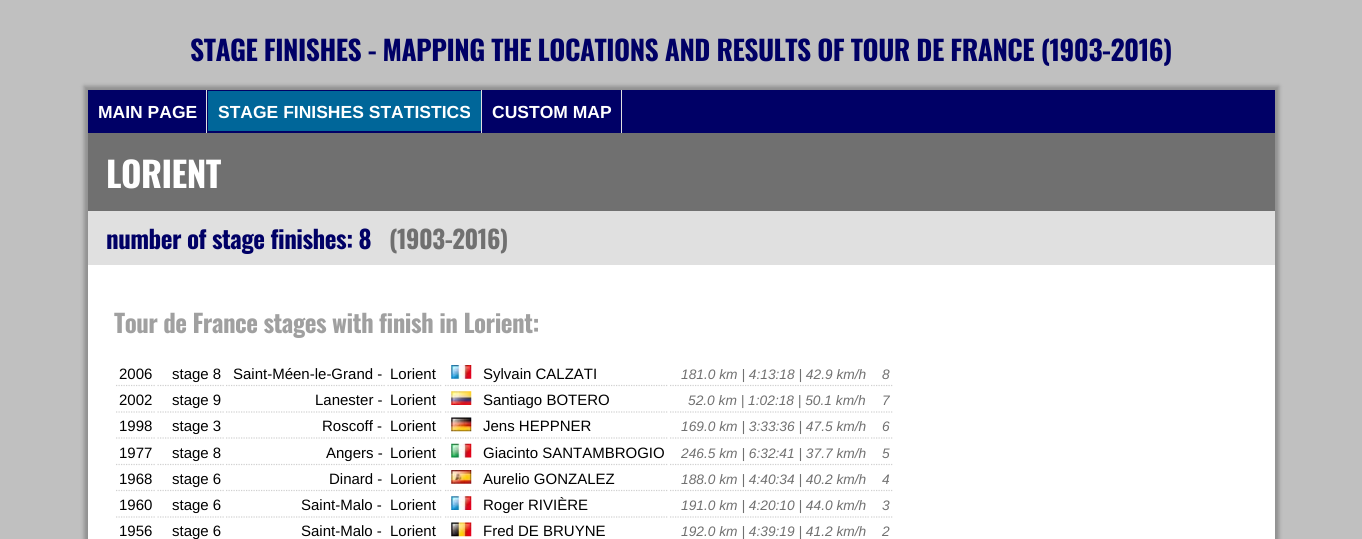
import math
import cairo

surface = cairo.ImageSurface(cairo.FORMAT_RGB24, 1362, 539)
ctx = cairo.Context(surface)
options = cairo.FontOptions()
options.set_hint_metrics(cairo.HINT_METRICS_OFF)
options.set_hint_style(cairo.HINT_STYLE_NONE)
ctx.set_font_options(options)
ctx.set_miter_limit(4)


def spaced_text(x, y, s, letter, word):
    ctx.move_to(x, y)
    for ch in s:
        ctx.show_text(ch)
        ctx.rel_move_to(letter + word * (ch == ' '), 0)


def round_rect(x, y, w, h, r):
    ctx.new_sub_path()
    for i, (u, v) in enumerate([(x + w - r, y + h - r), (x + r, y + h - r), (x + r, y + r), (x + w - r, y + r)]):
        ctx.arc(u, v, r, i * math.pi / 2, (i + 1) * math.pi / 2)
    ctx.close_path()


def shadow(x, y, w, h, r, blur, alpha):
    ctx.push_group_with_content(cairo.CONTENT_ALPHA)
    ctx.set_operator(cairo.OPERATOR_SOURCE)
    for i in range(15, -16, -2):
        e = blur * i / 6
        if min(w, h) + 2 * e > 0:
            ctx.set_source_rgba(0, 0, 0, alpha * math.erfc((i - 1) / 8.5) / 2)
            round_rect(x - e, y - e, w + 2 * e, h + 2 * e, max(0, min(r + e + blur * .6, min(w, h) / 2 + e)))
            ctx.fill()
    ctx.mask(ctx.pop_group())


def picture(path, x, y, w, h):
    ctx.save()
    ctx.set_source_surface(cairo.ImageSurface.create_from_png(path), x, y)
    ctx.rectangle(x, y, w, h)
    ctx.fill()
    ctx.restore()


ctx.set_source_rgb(0.753, 0.753, 0.753)
ctx.paint()
ctx.select_font_face("Oswald", cairo.FONT_SLANT_NORMAL, cairo.FONT_WEIGHT_BOLD)
ctx.set_font_size(27.5)
ctx.set_source_rgb(0, 0, 0.4)
spaced_text(190, 61, "STAGE FINISHES - MAPPING THE LOCATIONS AND RESULTS OF TOUR DE FRANCE (1903-2016)", -0.5, 0)
ctx.set_source_rgb(0.565, 0.565, 0.565)
shadow(84, 86, 1195, 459, 0, 2, 1)
ctx.set_source_rgb(0, 0, 0.4)
ctx.rectangle(88, 90, 1187, 43)
ctx.fill()
ctx.set_source_rgb(0.878, 0.878, 0.878)
ctx.rectangle(206, 90, 1, 43)
ctx.fill()
ctx.select_font_face("Liberation Sans", cairo.FONT_SLANT_NORMAL, cairo.FONT_WEIGHT_BOLD)
ctx.set_font_size(17.5)
ctx.set_source_rgb(1, 1, 1)
ctx.move_to(98, 118)
ctx.show_text("MAIN PAGE")
ctx.set_source_rgb(0.878, 0.878, 0.878)
ctx.rectangle(481, 90, 1, 43)
ctx.fill()
ctx.set_source_rgb(0, 0.4, 0.6)
ctx.rectangle(208, 91, 273, 40)
ctx.fill()
ctx.set_source_rgb(1, 1, 1)
ctx.move_to(218, 118)
ctx.show_text("STAGE FINISHES STATISTICS")
ctx.set_source_rgb(0.878, 0.878, 0.878)
ctx.rectangle(621, 90, 1, 43)
ctx.fill()
ctx.set_source_rgb(1, 1, 1)
ctx.move_to(492, 118)
ctx.show_text("CUSTOM MAP")
ctx.rectangle(88, 265, 1187, 274)
ctx.fill()
ctx.set_source_rgb(0.439, 0.439, 0.439)
ctx.rectangle(88, 133, 1187, 78)
ctx.fill()
ctx.select_font_face("Oswald", cairo.FONT_SLANT_NORMAL, cairo.FONT_WEIGHT_BOLD)
ctx.set_font_size(35)
ctx.set_source_rgb(1, 1, 1)
spaced_text(106, 188, "LORIENT", -0.5, 0)
ctx.set_source_rgb(0.878, 0.878, 0.878)
ctx.rectangle(88, 211, 1187, 54)
ctx.fill()
ctx.set_font_size(25)
ctx.set_source_rgb(0, 0, 0.4)
spaced_text(106, 249, "number of stage finishes: 8", -0.5, 0)
ctx.set_source_rgb(0.439, 0.439, 0.439)
spaced_text(389, 249, "(1903-2016)", -0.5, 0)
ctx.set_source_rgb(0.627, 0.627, 0.627)
spaced_text(114, 333, "Tour de France stages with finish in Lorient:", -0.5, 0)
ctx.new_path()
ctx.move_to(116, 385.5)
ctx.line_to(155, 385.5)
ctx.set_source_rgb(0.816, 0.816, 0.816)
ctx.set_line_width(1.2)
ctx.set_dash([1.25, 1.25])
ctx.stroke()
ctx.select_font_face("Liberation Sans")
ctx.set_font_size(15)
ctx.set_source_rgb(0, 0, 0)
ctx.move_to(119, 379)
ctx.show_text("2006")
ctx.new_path()
ctx.move_to(157.5, 385.5)
ctx.line_to(224, 385.5)
ctx.set_source_rgb(0.816, 0.816, 0.816)
ctx.stroke()
ctx.set_source_rgb(0, 0, 0)
ctx.move_to(172, 379)
ctx.show_text("stage 8")
ctx.new_path()
ctx.move_to(226, 385.5)
ctx.line_to(385, 385.5)
ctx.set_source_rgb(0.816, 0.816, 0.816)
ctx.stroke()
ctx.set_source_rgb(0, 0, 0)
ctx.move_to(233, 379)
ctx.show_text("Saint-Méen-le-Grand -")
ctx.new_path()
ctx.move_to(387.5, 385.5)
ctx.line_to(442.5, 385.5)
ctx.set_source_rgb(0.816, 0.816, 0.816)
ctx.stroke()
ctx.set_source_rgb(0, 0, 0)
ctx.move_to(390, 379)
ctx.show_text("Lorient")
ctx.new_path()
ctx.move_to(445, 385.5)
ctx.line_to(479, 385.5)
ctx.set_source_rgb(0.816, 0.816, 0.816)
ctx.stroke()
picture("img1.png", 451, 365, 21, 14)
ctx.new_path()
ctx.move_to(481, 385.5)
ctx.line_to(667.5, 385.5)
ctx.stroke()
ctx.set_source_rgb(0, 0, 0)
ctx.move_to(483, 379)
ctx.show_text("Sylvain CALZATI")
ctx.new_path()
ctx.move_to(670, 385.5)
ctx.line_to(869, 385.5)
ctx.set_source_rgb(0.816, 0.816, 0.816)
ctx.stroke()
ctx.select_font_face("Liberation Sans", cairo.FONT_SLANT_ITALIC)
ctx.set_font_size(13.75)
ctx.set_source_rgb(0.439, 0.439, 0.439)
ctx.move_to(681, 379)
ctx.show_text("181.0 km | 4:13:18 | 42.9 km/h")
ctx.new_path()
ctx.move_to(871, 385.5)
ctx.line_to(892.5, 385.5)
ctx.set_source_rgb(0.816, 0.816, 0.816)
ctx.stroke()
ctx.set_source_rgb(0.439, 0.439, 0.439)
ctx.move_to(882, 379)
ctx.show_text("8")
ctx.new_path()
ctx.move_to(116, 412)
ctx.line_to(155, 412)
ctx.set_source_rgb(0.816, 0.816, 0.816)
ctx.stroke()
ctx.select_font_face("Liberation Sans")
ctx.set_font_size(15)
ctx.set_source_rgb(0, 0, 0)
ctx.move_to(119, 405)
ctx.show_text("2002")
ctx.new_path()
ctx.move_to(157.5, 412)
ctx.line_to(224, 412)
ctx.set_source_rgb(0.816, 0.816, 0.816)
ctx.stroke()
ctx.set_source_rgb(0, 0, 0)
ctx.move_to(172, 405)
ctx.show_text("stage 9")
ctx.new_path()
ctx.move_to(226, 412)
ctx.line_to(385, 412)
ctx.set_source_rgb(0.816, 0.816, 0.816)
ctx.stroke()
ctx.set_source_rgb(0, 0, 0)
ctx.move_to(315, 405)
ctx.show_text("Lanester -")
ctx.new_path()
ctx.move_to(387.5, 412)
ctx.line_to(442.5, 412)
ctx.set_source_rgb(0.816, 0.816, 0.816)
ctx.stroke()
ctx.set_source_rgb(0, 0, 0)
ctx.move_to(390, 405)
ctx.show_text("Lorient")
ctx.new_path()
ctx.move_to(445, 412)
ctx.line_to(479, 412)
ctx.set_source_rgb(0.816, 0.816, 0.816)
ctx.stroke()
picture("img2.png", 451, 391, 21, 14)
ctx.new_path()
ctx.move_to(481, 412)
ctx.line_to(667.5, 412)
ctx.stroke()
ctx.set_source_rgb(0, 0, 0)
ctx.move_to(483, 405)
ctx.show_text("Santiago BOTERO")
ctx.new_path()
ctx.move_to(670, 412)
ctx.line_to(869, 412)
ctx.set_source_rgb(0.816, 0.816, 0.816)
ctx.stroke()
ctx.select_font_face("Liberation Sans", cairo.FONT_SLANT_ITALIC)
ctx.set_font_size(13.75)
ctx.set_source_rgb(0.439, 0.439, 0.439)
ctx.move_to(688, 405)
ctx.show_text("52.0 km | 1:02:18 | 50.1 km/h")
ctx.new_path()
ctx.move_to(871, 412)
ctx.line_to(892.5, 412)
ctx.set_source_rgb(0.816, 0.816, 0.816)
ctx.stroke()
ctx.set_source_rgb(0.439, 0.439, 0.439)
ctx.move_to(882, 405)
ctx.show_text("7")
ctx.new_path()
ctx.move_to(116, 438)
ctx.line_to(155, 438)
ctx.set_source_rgb(0.816, 0.816, 0.816)
ctx.stroke()
ctx.select_font_face("Liberation Sans")
ctx.set_font_size(15)
ctx.set_source_rgb(0, 0, 0)
ctx.move_to(119, 431)
ctx.show_text("1998")
ctx.new_path()
ctx.move_to(157.5, 438)
ctx.line_to(224, 438)
ctx.set_source_rgb(0.816, 0.816, 0.816)
ctx.stroke()
ctx.set_source_rgb(0, 0, 0)
ctx.move_to(172, 431)
ctx.show_text("stage 3")
ctx.new_path()
ctx.move_to(226, 438)
ctx.line_to(385, 438)
ctx.set_source_rgb(0.816, 0.816, 0.816)
ctx.stroke()
ctx.set_source_rgb(0, 0, 0)
ctx.move_to(322, 431)
ctx.show_text("Roscoff -")
ctx.new_path()
ctx.move_to(387.5, 438)
ctx.line_to(442.5, 438)
ctx.set_source_rgb(0.816, 0.816, 0.816)
ctx.stroke()
ctx.set_source_rgb(0, 0, 0)
ctx.move_to(390, 431)
ctx.show_text("Lorient")
ctx.new_path()
ctx.move_to(445, 438)
ctx.line_to(479, 438)
ctx.set_source_rgb(0.816, 0.816, 0.816)
ctx.stroke()
picture("img3.png", 451, 417, 21, 15)
ctx.new_path()
ctx.move_to(481, 438)
ctx.line_to(667.5, 438)
ctx.stroke()
ctx.set_source_rgb(0, 0, 0)
ctx.move_to(483, 431)
ctx.show_text("Jens HEPPNER")
ctx.new_path()
ctx.move_to(670, 438)
ctx.line_to(869, 438)
ctx.set_source_rgb(0.816, 0.816, 0.816)
ctx.stroke()
ctx.select_font_face("Liberation Sans", cairo.FONT_SLANT_ITALIC)
ctx.set_font_size(13.75)
ctx.set_source_rgb(0.439, 0.439, 0.439)
ctx.move_to(681, 431)
ctx.show_text("169.0 km | 3:33:36 | 47.5 km/h")
ctx.new_path()
ctx.move_to(871, 438)
ctx.line_to(892.5, 438)
ctx.set_source_rgb(0.816, 0.816, 0.816)
ctx.stroke()
ctx.set_source_rgb(0.439, 0.439, 0.439)
ctx.move_to(882, 431)
ctx.show_text("6")
ctx.new_path()
ctx.move_to(116, 464.5)
ctx.line_to(155, 464.5)
ctx.set_source_rgb(0.816, 0.816, 0.816)
ctx.stroke()
ctx.select_font_face("Liberation Sans")
ctx.set_font_size(15)
ctx.set_source_rgb(0, 0, 0)
ctx.move_to(119, 458)
ctx.show_text("1977")
ctx.new_path()
ctx.move_to(157.5, 464.5)
ctx.line_to(224, 464.5)
ctx.set_source_rgb(0.816, 0.816, 0.816)
ctx.stroke()
ctx.set_source_rgb(0, 0, 0)
ctx.move_to(172, 458)
ctx.show_text("stage 8")
ctx.new_path()
ctx.move_to(226, 464.5)
ctx.line_to(385, 464.5)
ctx.set_source_rgb(0.816, 0.816, 0.816)
ctx.stroke()
ctx.set_source_rgb(0, 0, 0)
ctx.move_to(326, 458)
ctx.show_text("Angers -")
ctx.new_path()
ctx.move_to(387.5, 464.5)
ctx.line_to(442.5, 464.5)
ctx.set_source_rgb(0.816, 0.816, 0.816)
ctx.stroke()
ctx.set_source_rgb(0, 0, 0)
ctx.move_to(390, 458)
ctx.show_text("Lorient")
ctx.new_path()
ctx.move_to(445, 464.5)
ctx.line_to(479, 464.5)
ctx.set_source_rgb(0.816, 0.816, 0.816)
ctx.stroke()
picture("img4.png", 451, 443, 21, 15)
ctx.new_path()
ctx.move_to(481, 464.5)
ctx.line_to(667.5, 464.5)
ctx.stroke()
ctx.set_source_rgb(0, 0, 0)
ctx.move_to(483, 458)
ctx.show_text("Giacinto SANTAMBROGIO")
ctx.new_path()
ctx.move_to(670, 464.5)
ctx.line_to(869, 464.5)
ctx.set_source_rgb(0.816, 0.816, 0.816)
ctx.stroke()
ctx.select_font_face("Liberation Sans", cairo.FONT_SLANT_ITALIC)
ctx.set_font_size(13.75)
ctx.set_source_rgb(0.439, 0.439, 0.439)
ctx.move_to(681, 458)
ctx.show_text("246.5 km | 6:32:41 | 37.7 km/h")
ctx.new_path()
ctx.move_to(871, 464.5)
ctx.line_to(892.5, 464.5)
ctx.set_source_rgb(0.816, 0.816, 0.816)
ctx.stroke()
ctx.set_source_rgb(0.439, 0.439, 0.439)
ctx.move_to(882, 458)
ctx.show_text("5")
ctx.new_path()
ctx.move_to(116, 490.5)
ctx.line_to(155, 490.5)
ctx.set_source_rgb(0.816, 0.816, 0.816)
ctx.stroke()
ctx.select_font_face("Liberation Sans")
ctx.set_font_size(15)
ctx.set_source_rgb(0, 0, 0)
ctx.move_to(119, 484)
ctx.show_text("1968")
ctx.new_path()
ctx.move_to(157.5, 490.5)
ctx.line_to(224, 490.5)
ctx.set_source_rgb(0.816, 0.816, 0.816)
ctx.stroke()
ctx.set_source_rgb(0, 0, 0)
ctx.move_to(172, 484)
ctx.show_text("stage 6")
ctx.new_path()
ctx.move_to(226, 490.5)
ctx.line_to(385, 490.5)
ctx.set_source_rgb(0.816, 0.816, 0.816)
ctx.stroke()
ctx.set_source_rgb(0, 0, 0)
ctx.move_to(329, 484)
ctx.show_text("Dinard -")
ctx.new_path()
ctx.move_to(387.5, 490.5)
ctx.line_to(442.5, 490.5)
ctx.set_source_rgb(0.816, 0.816, 0.816)
ctx.stroke()
ctx.set_source_rgb(0, 0, 0)
ctx.move_to(390, 484)
ctx.show_text("Lorient")
ctx.new_path()
ctx.move_to(445, 490.5)
ctx.line_to(479, 490.5)
ctx.set_source_rgb(0.816, 0.816, 0.816)
ctx.stroke()
picture("img5.png", 451, 470, 21, 14)
ctx.new_path()
ctx.move_to(481, 490.5)
ctx.line_to(667.5, 490.5)
ctx.stroke()
ctx.set_source_rgb(0, 0, 0)
ctx.move_to(483, 484)
ctx.show_text("Aurelio GONZALEZ")
ctx.new_path()
ctx.move_to(670, 490.5)
ctx.line_to(869, 490.5)
ctx.set_source_rgb(0.816, 0.816, 0.816)
ctx.stroke()
ctx.select_font_face("Liberation Sans", cairo.FONT_SLANT_ITALIC)
ctx.set_font_size(13.75)
ctx.set_source_rgb(0.439, 0.439, 0.439)
ctx.move_to(681, 484)
ctx.show_text("188.0 km | 4:40:34 | 40.2 km/h")
ctx.new_path()
ctx.move_to(871, 490.5)
ctx.line_to(892.5, 490.5)
ctx.set_source_rgb(0.816, 0.816, 0.816)
ctx.stroke()
ctx.set_source_rgb(0.439, 0.439, 0.439)
ctx.move_to(882, 484)
ctx.show_text("4")
ctx.new_path()
ctx.move_to(116, 517)
ctx.line_to(155, 517)
ctx.set_source_rgb(0.816, 0.816, 0.816)
ctx.stroke()
ctx.select_font_face("Liberation Sans")
ctx.set_font_size(15)
ctx.set_source_rgb(0, 0, 0)
ctx.move_to(119, 510)
ctx.show_text("1960")
ctx.new_path()
ctx.move_to(157.5, 517)
ctx.line_to(224, 517)
ctx.set_source_rgb(0.816, 0.816, 0.816)
ctx.stroke()
ctx.set_source_rgb(0, 0, 0)
ctx.move_to(172, 510)
ctx.show_text("stage 6")
ctx.new_path()
ctx.move_to(226, 517)
ctx.line_to(385, 517)
ctx.set_source_rgb(0.816, 0.816, 0.816)
ctx.stroke()
ctx.set_source_rgb(0, 0, 0)
ctx.move_to(301, 510)
ctx.show_text("Saint-Malo -")
ctx.new_path()
ctx.move_to(387.5, 517)
ctx.line_to(442.5, 517)
ctx.set_source_rgb(0.816, 0.816, 0.816)
ctx.stroke()
ctx.set_source_rgb(0, 0, 0)
ctx.move_to(390, 510)
ctx.show_text("Lorient")
ctx.new_path()
ctx.move_to(445, 517)
ctx.line_to(479, 517)
ctx.set_source_rgb(0.816, 0.816, 0.816)
ctx.stroke()
picture("img6.png", 451, 496, 21, 14)
ctx.new_path()
ctx.move_to(481, 517)
ctx.line_to(667.5, 517)
ctx.stroke()
ctx.set_source_rgb(0, 0, 0)
ctx.move_to(483, 510)
ctx.show_text("Roger RIVIÈRE")
ctx.new_path()
ctx.move_to(670, 517)
ctx.line_to(869, 517)
ctx.set_source_rgb(0.816, 0.816, 0.816)
ctx.stroke()
ctx.select_font_face("Liberation Sans", cairo.FONT_SLANT_ITALIC)
ctx.set_font_size(13.75)
ctx.set_source_rgb(0.439, 0.439, 0.439)
ctx.move_to(681, 510)
ctx.show_text("191.0 km | 4:20:10 | 44.0 km/h")
ctx.new_path()
ctx.move_to(871, 517)
ctx.line_to(892.5, 517)
ctx.set_source_rgb(0.816, 0.816, 0.816)
ctx.stroke()
ctx.set_source_rgb(0.439, 0.439, 0.439)
ctx.move_to(882, 510)
ctx.show_text("3")
ctx.select_font_face("Liberation Sans")
ctx.set_font_size(15)
ctx.set_source_rgb(0, 0, 0)
ctx.move_to(119, 536)
ctx.show_text("1956")
ctx.move_to(172, 536)
ctx.show_text("stage 6")
ctx.move_to(301, 536)
ctx.show_text("Saint-Malo -")
ctx.move_to(390, 536)
ctx.show_text("Lorient")
picture("img7.png", 451, 522, 21, 15)
ctx.move_to(483, 536)
ctx.show_text("Fred DE BRUYNE")
ctx.select_font_face("Liberation Sans", cairo.FONT_SLANT_ITALIC)
ctx.set_font_size(13.75)
ctx.set_source_rgb(0.439, 0.439, 0.439)
ctx.move_to(681, 536)
ctx.show_text("192.0 km | 4:39:19 | 41.2 km/h")
ctx.move_to(882, 536)
ctx.show_text("2")
surface.write_to_png("page.png")
